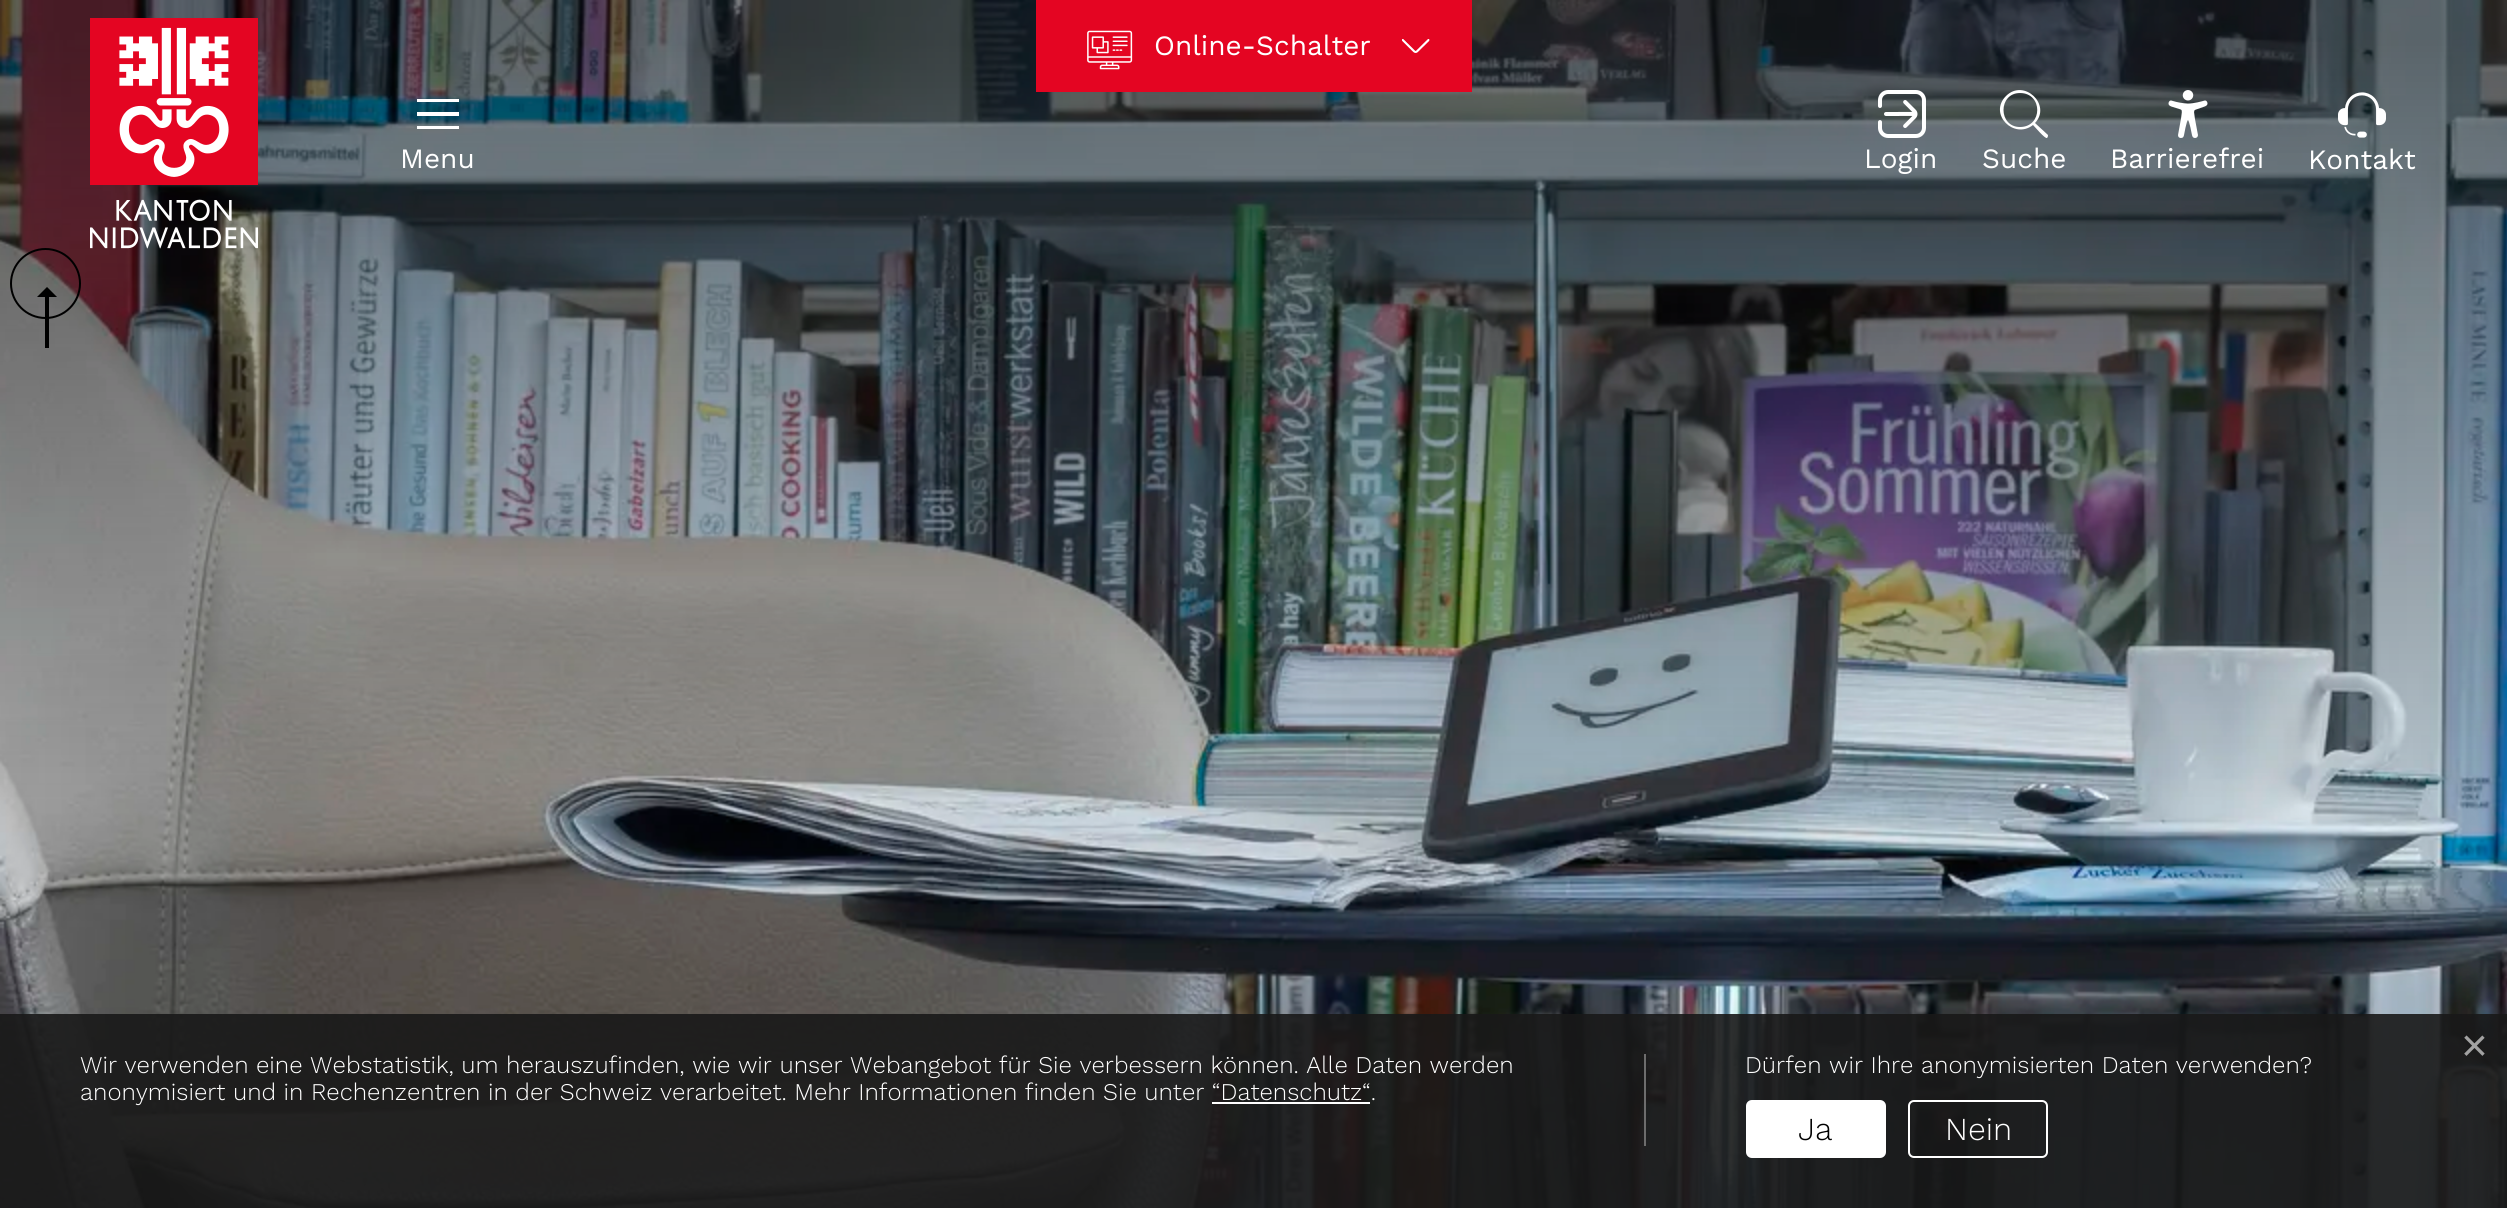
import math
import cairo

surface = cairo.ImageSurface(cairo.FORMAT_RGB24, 2507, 1208)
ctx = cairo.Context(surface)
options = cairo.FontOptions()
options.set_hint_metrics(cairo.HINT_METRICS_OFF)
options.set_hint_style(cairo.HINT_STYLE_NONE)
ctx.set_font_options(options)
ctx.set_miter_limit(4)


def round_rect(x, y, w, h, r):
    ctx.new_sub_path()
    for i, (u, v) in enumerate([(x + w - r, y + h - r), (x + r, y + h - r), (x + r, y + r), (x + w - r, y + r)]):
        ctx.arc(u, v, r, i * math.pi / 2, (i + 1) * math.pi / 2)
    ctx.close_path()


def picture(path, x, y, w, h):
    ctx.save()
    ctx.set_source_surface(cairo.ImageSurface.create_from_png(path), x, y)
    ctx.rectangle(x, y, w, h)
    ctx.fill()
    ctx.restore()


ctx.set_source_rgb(1, 1, 1)
ctx.paint()
picture("img1.png", 0, 0, 2507, 1208)
picture("img2.png", 90, 18, 168, 231)
ctx.set_source_rgb(0.894, 0.02, 0.133)
ctx.rectangle(1036, 0, 436, 92)
ctx.fill()
picture("img3.png", 1402, 39, 28, 14)
picture("img4.png", 1087, 30, 46, 40)
ctx.select_font_face("Work Sans")
ctx.set_font_size(28)
ctx.set_source_rgb(1, 1, 1)
ctx.move_to(1154, 55)
ctx.show_text("Online-Schalter")
ctx.rectangle(417, 99, 42, 3)
ctx.fill()
ctx.rectangle(417, 112, 42, 4)
ctx.fill()
ctx.rectangle(417, 126, 42, 3)
ctx.fill()
ctx.move_to(400, 168)
ctx.show_text("Menu")
picture("img5.png", 1878, 90, 48, 48)
ctx.move_to(1864, 168)
ctx.show_text("Login")
ctx.new_path()
ctx.move_to(2048, 135)
ctx.line_to(2035, 123)
ctx.curve_to(2052, 105, 2024, 78, 2006, 96)
ctx.curve_to(1988, 114, 2014, 140, 2033, 125)
ctx.curve_to(2035, 127, 2045, 139, 2047, 138)
ctx.curve_to(2048, 137, 2048, 136, 2048, 135)
ctx.close_path()
ctx.move_to(2020, 127)
ctx.curve_to(1998, 127, 1998, 93, 2020, 93)
ctx.curve_to(2043, 93, 2043, 127, 2020, 127)
ctx.close_path()
ctx.fill()
ctx.move_to(1982, 168)
ctx.show_text("Suche")
picture("img6.png", 2168, 90, 40, 48)
ctx.move_to(2110, 168)
ctx.show_text("Barrierefrei")
picture("img7.png", 2338, 92, 48, 46)
ctx.move_to(2308, 169)
ctx.show_text("Kontakt")
ctx.new_path()
ctx.arc(45.5, 283.5, 34.5, 0, 2 * math.pi)
ctx.set_source_rgb(0, 0, 0)
ctx.stroke()
ctx.new_path()
ctx.move_to(57, 297)
ctx.line_to(47, 287)
ctx.line_to(37, 297)
ctx.line_to(45, 297)
ctx.line_to(45, 348)
ctx.line_to(49, 348)
ctx.line_to(49, 297)
ctx.close_path()
ctx.fill()
ctx.set_source_rgba(0.098, 0.098, 0.098, 0.9)
ctx.rectangle(0, 1014, 2507, 194)
ctx.fill()
ctx.select_font_face("Liberation Sans")
ctx.set_font_size(46)
ctx.set_source_rgb(0.635, 0.635, 0.635)
ctx.move_to(2461, 1061)
ctx.show_text("×")
ctx.set_source_rgb(0.427, 0.427, 0.427)
ctx.rectangle(1644, 1054, 2, 92)
ctx.fill()
ctx.select_font_face("Work Sans Light")
ctx.set_font_size(24)
ctx.set_source_rgb(1, 1, 1)
ctx.move_to(80, 1073)
ctx.show_text("Wir verwenden eine Webstatistik, um herauszufinden, wie wir unser Webangebot für Sie verbessern können. Alle Daten werden")
ctx.move_to(80, 1100)
ctx.show_text("anonymisiert und in Rechenzentren in der Schweiz verarbeitet. Mehr Informationen finden Sie unter “Datenschutz“.")
ctx.rectangle(1212, 1102, 158, 2)
ctx.fill()
ctx.move_to(1745, 1073)
ctx.show_text("Dürfen wir Ihre anonymisierten Daten verwenden?")
round_rect(1747, 1101, 138, 56, 5)
ctx.fill_preserve()
ctx.stroke()
ctx.set_font_size(32)
ctx.set_source_rgb(0, 0, 0)
ctx.move_to(1798, 1140)
ctx.show_text("Ja")
round_rect(1909, 1101, 138, 56, 5)
ctx.set_source_rgb(1, 1, 1)
ctx.stroke()
ctx.move_to(1945, 1140)
ctx.show_text("Nein")
surface.write_to_png("page.png")
